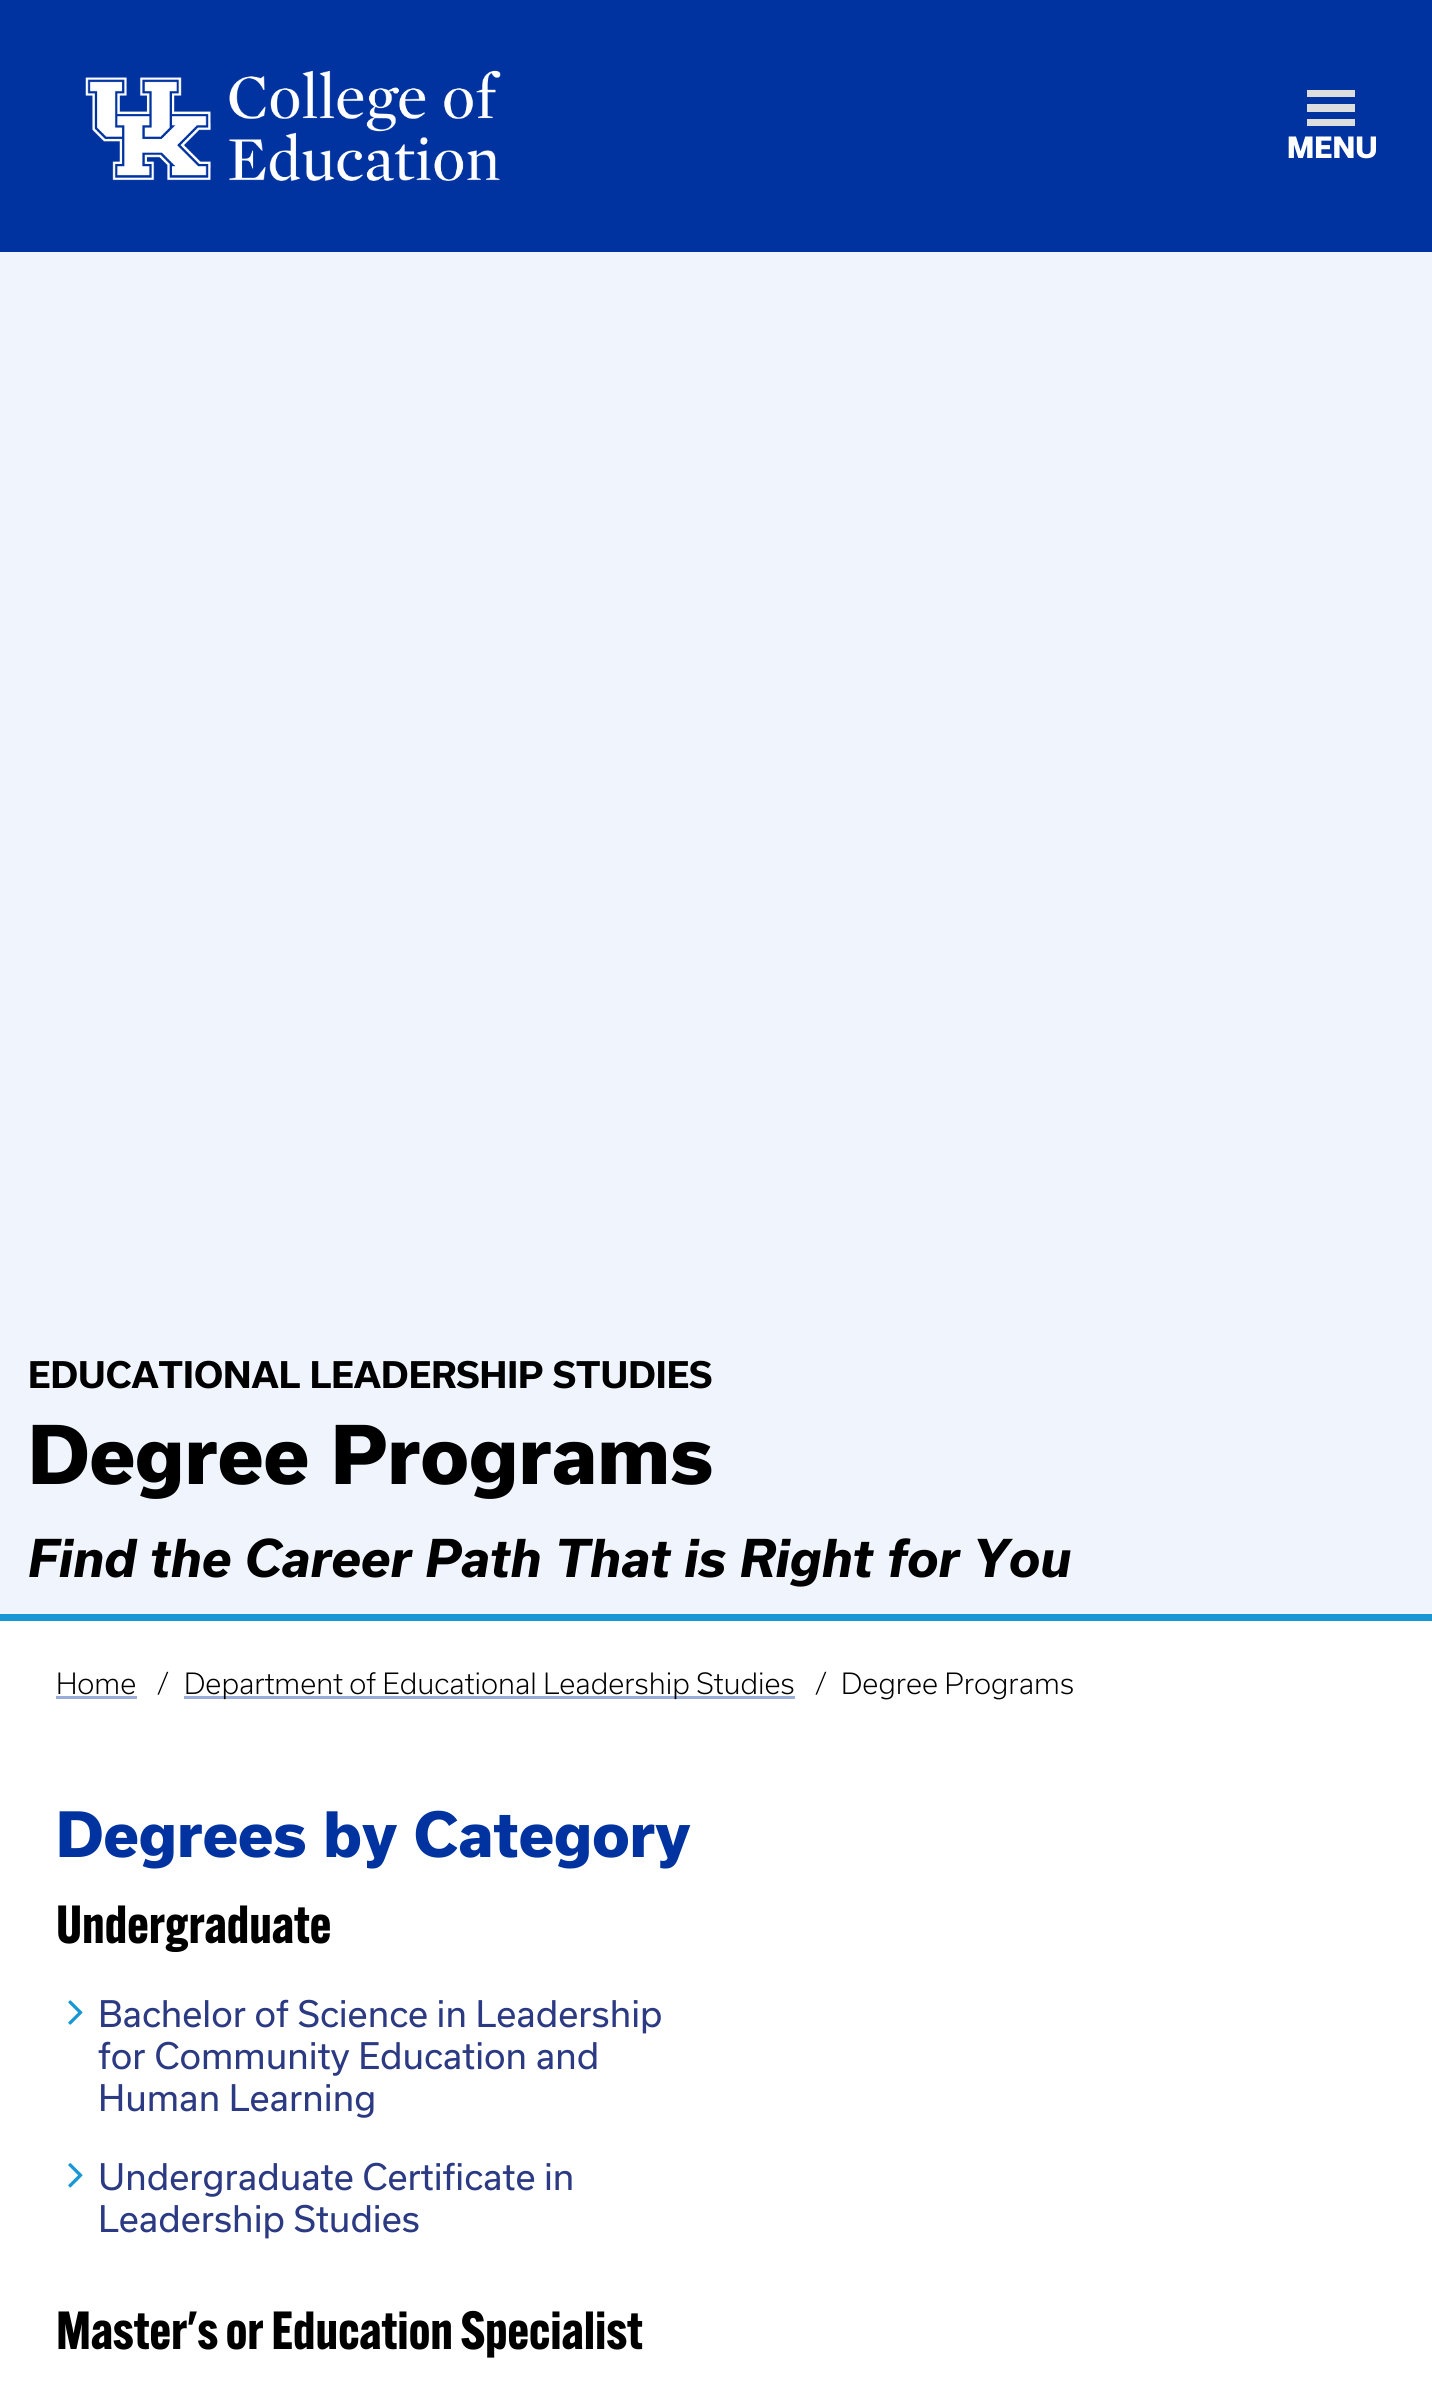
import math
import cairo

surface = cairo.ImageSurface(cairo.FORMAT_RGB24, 1432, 2395)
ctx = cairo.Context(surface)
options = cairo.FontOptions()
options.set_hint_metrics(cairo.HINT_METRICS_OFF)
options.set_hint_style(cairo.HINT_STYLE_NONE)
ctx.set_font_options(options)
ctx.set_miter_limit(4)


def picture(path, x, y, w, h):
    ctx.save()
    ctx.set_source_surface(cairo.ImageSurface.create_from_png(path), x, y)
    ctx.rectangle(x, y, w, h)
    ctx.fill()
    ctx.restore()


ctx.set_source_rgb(1, 1, 1)
ctx.paint()
ctx.set_source_rgb(0, 0.2, 0.627)
ctx.rectangle(0, 0, 1432, 252)
ctx.fill()
picture("img1.png", 85, 70, 416, 111)
ctx.set_source_rgb(0.863, 0.867, 0.871)
ctx.new_path()
ctx.move_to(1307, 90)
ctx.line_to(1355, 90)
ctx.line_to(1355, 97)
ctx.line_to(1307, 97)
ctx.close_path()
ctx.move_to(1307, 104)
ctx.line_to(1355, 104)
ctx.line_to(1355, 112)
ctx.line_to(1307, 112)
ctx.close_path()
ctx.move_to(1307, 119)
ctx.line_to(1355, 119)
ctx.line_to(1355, 126)
ctx.line_to(1307, 126)
ctx.close_path()
ctx.fill()
ctx.select_font_face("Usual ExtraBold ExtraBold")
ctx.set_font_size(28)
ctx.set_source_rgb(1, 1, 1)
ctx.move_to(1287, 158)
ctx.show_text("MENU")
ctx.set_source_rgb(0.937, 0.957, 0.992)
ctx.rectangle(0, 252, 1432, 1362)
ctx.fill()
ctx.set_source_rgb(0.094, 0.592, 0.831)
ctx.rectangle(0, 1614, 1432, 7)
ctx.fill()
ctx.select_font_face("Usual", cairo.FONT_SLANT_NORMAL, cairo.FONT_WEIGHT_BOLD)
ctx.set_font_size(35)
ctx.set_source_rgb(0, 0, 0)
ctx.move_to(28, 1388)
ctx.show_text("EDUCATIONAL LEADERSHIP STUDIES")
ctx.select_font_face("Usual ExtraBold ExtraBold")
ctx.set_font_size(77)
ctx.move_to(28, 1484)
ctx.show_text("Degree Programs")
ctx.select_font_face("Usual", cairo.FONT_SLANT_ITALIC, cairo.FONT_WEIGHT_BOLD)
ctx.set_font_size(49.7)
ctx.move_to(28, 1577)
ctx.show_text("Find the Career Path That is Right for You")
ctx.select_font_face("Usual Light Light")
ctx.set_font_size(28)
ctx.move_to(56, 1694)
ctx.show_text("Home")
gradient = cairo.LinearGradient(96, 1699, 96, 1668)
gradient.add_color_stop_rgba(0, 0.6, 0.678, 0.851, 1)
gradient.add_color_stop_rgba(0.11, 0.6, 0.678, 0.851, 1)
gradient.add_color_stop_rgba(0.11, 1, 1, 1, 1)
gradient.add_color_stop_rgba(1, 1, 1, 1, 1)
ctx.set_source(gradient)
ctx.rectangle(56, 1696, 81, 3)
ctx.fill()
ctx.set_source_rgb(0, 0, 0)
ctx.move_to(157, 1694)
ctx.show_text("/")
gradient = cairo.LinearGradient(489, 1699, 489, 1668)
gradient.add_color_stop_rgba(0, 0.6, 0.678, 0.851, 1)
gradient.add_color_stop_rgba(0.11, 0.6, 0.678, 0.851, 1)
gradient.add_color_stop_rgba(0.11, 1, 1, 1, 1)
gradient.add_color_stop_rgba(1, 1, 1, 1, 1)
ctx.set_source(gradient)
ctx.rectangle(184, 1696, 611, 3)
ctx.fill()
ctx.set_source_rgb(0, 0, 0)
ctx.move_to(184, 1694)
ctx.show_text("Department of Educational Leadership Studies")
ctx.move_to(815, 1694)
ctx.show_text("/")
ctx.move_to(841, 1694)
ctx.show_text("Degree Programs")
ctx.select_font_face("Usual ExtraBold ExtraBold")
ctx.set_font_size(59.5)
ctx.set_source_rgb(0, 0.2, 0.627)
ctx.move_to(56, 1857)
ctx.show_text("Degrees by Category")
ctx.select_font_face("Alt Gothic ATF", cairo.FONT_SLANT_NORMAL, cairo.FONT_WEIGHT_BOLD)
ctx.set_font_size(52.5)
ctx.set_source_rgb(0, 0, 0)
ctx.move_to(56, 1943)
ctx.show_text("Undergraduate")
picture("img2.png", 68, 2000, 15, 25)
ctx.select_font_face("Usual")
ctx.set_font_size(35)
ctx.set_source_rgb(0.169, 0.227, 0.51)
ctx.move_to(98, 2027)
ctx.show_text("Bachelor of Science in Leadership")
ctx.move_to(98, 2069)
ctx.show_text("for Community Education and")
ctx.move_to(98, 2111)
ctx.show_text("Human Learning")
picture("img3.png", 68, 2163, 15, 25)
ctx.move_to(98, 2190)
ctx.show_text("Undergraduate Certificate in")
ctx.move_to(98, 2232)
ctx.show_text("Leadership Studies")
ctx.select_font_face("Alt Gothic ATF", cairo.FONT_SLANT_NORMAL, cairo.FONT_WEIGHT_BOLD)
ctx.set_font_size(52.5)
ctx.set_source_rgb(0, 0, 0)
ctx.move_to(56, 2349)
ctx.show_text("Master's or Education Specialist")
surface.write_to_png("page.png")
